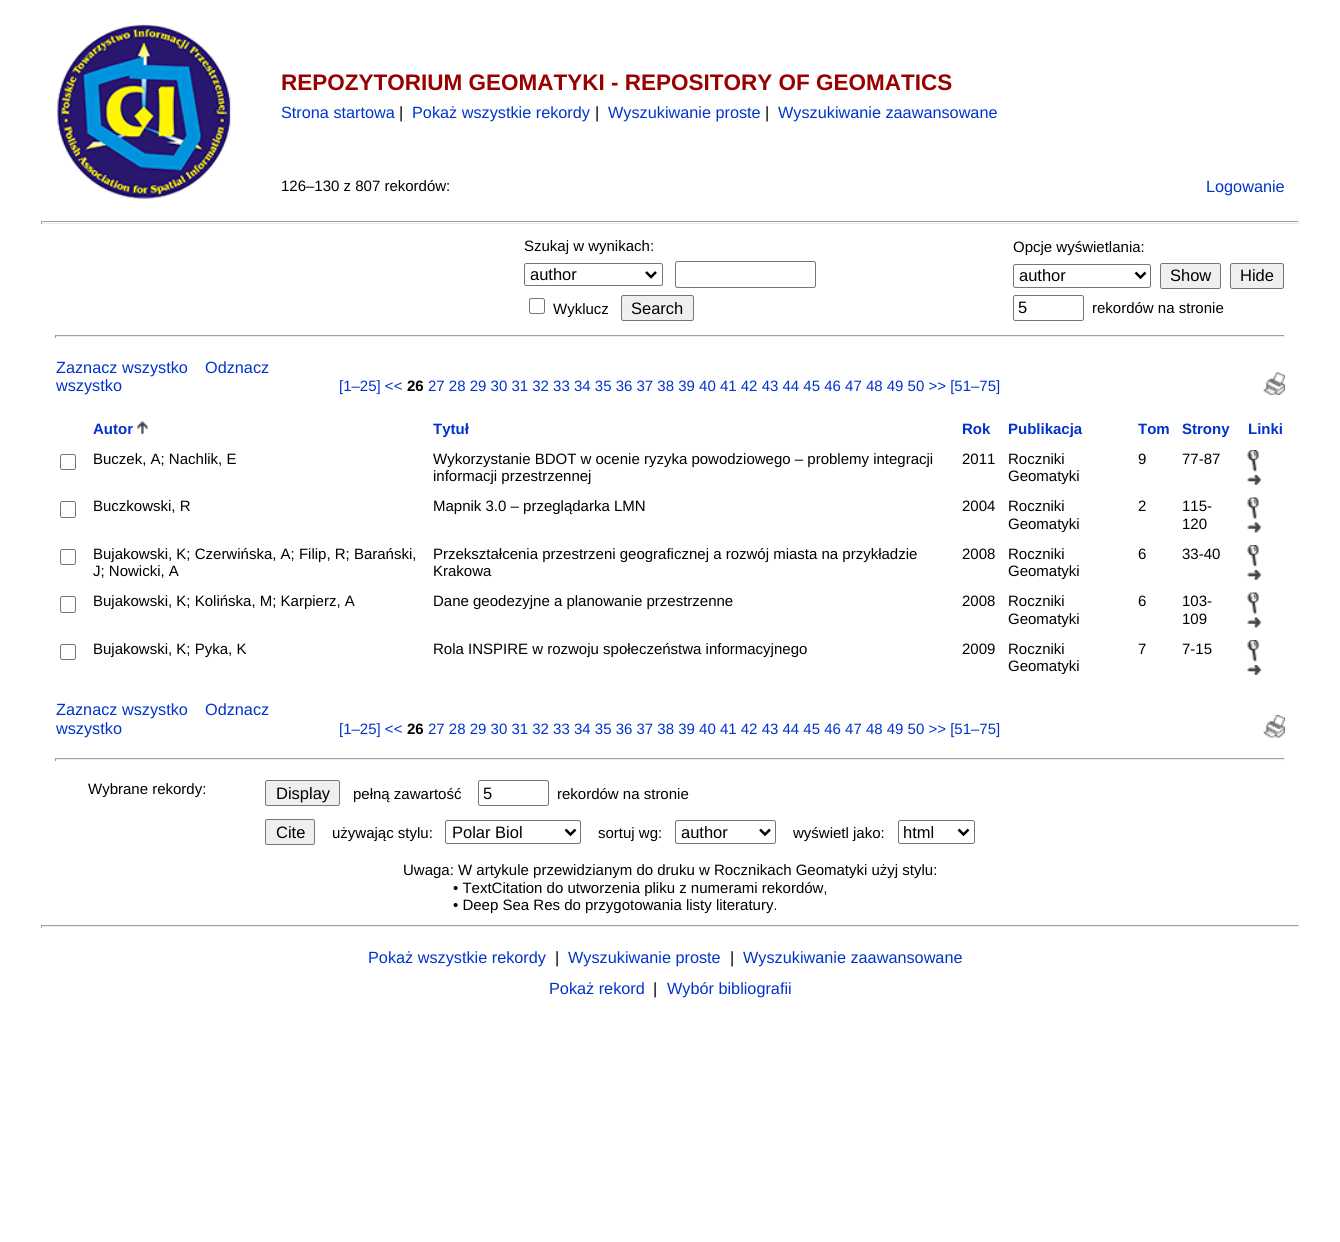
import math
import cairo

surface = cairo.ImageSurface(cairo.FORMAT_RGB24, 1340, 1242)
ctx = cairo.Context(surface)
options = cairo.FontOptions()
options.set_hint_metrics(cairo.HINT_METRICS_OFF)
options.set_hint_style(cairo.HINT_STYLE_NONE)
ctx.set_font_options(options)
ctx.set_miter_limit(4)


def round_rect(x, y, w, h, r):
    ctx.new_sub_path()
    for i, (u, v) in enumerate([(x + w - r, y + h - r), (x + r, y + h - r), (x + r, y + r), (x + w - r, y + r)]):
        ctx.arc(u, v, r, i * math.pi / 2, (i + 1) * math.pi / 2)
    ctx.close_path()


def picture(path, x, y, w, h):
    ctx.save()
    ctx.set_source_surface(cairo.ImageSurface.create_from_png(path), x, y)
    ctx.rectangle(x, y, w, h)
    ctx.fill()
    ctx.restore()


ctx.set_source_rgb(1, 1, 1)
ctx.paint()
picture("img1.png", 57, 24, 174, 175)
ctx.select_font_face("Liberation Sans", cairo.FONT_SLANT_NORMAL, cairo.FONT_WEIGHT_BOLD)
ctx.set_font_size(22.5)
ctx.set_source_rgb(0.6, 0, 0)
ctx.move_to(281, 90)
ctx.show_text("REPOZYTORIUM GEOMATYKI - REPOSITORY OF GEOMATICS")
ctx.select_font_face("Liberation Sans")
ctx.set_font_size(16.25)
ctx.set_source_rgb(0, 0.2, 0.8)
ctx.move_to(281, 118)
ctx.show_text("Strona startowa")
ctx.set_source_rgb(0, 0, 0)
ctx.move_to(399, 118)
ctx.show_text("|")
ctx.set_source_rgb(0, 0.2, 0.8)
ctx.move_to(412, 118)
ctx.show_text("Pokaż wszystkie rekordy")
ctx.set_source_rgb(0, 0, 0)
ctx.move_to(595, 118)
ctx.show_text("|")
ctx.set_source_rgb(0, 0.2, 0.8)
ctx.move_to(608, 118)
ctx.show_text("Wyszukiwanie proste")
ctx.set_source_rgb(0, 0, 0)
ctx.move_to(765, 118)
ctx.show_text("|")
ctx.set_source_rgb(0, 0.2, 0.8)
ctx.move_to(778, 118)
ctx.show_text("Wyszukiwanie zaawansowane")
ctx.set_font_size(15)
ctx.set_source_rgb(0, 0, 0)
ctx.move_to(281, 191)
ctx.show_text("126–130 z 807 rekordów:")
ctx.set_font_size(16.25)
ctx.set_source_rgb(0, 0.2, 0.8)
ctx.move_to(1206, 192)
ctx.show_text("Logowanie")
ctx.set_source_rgb(0.624, 0.624, 0.624)
ctx.rectangle(41, 221, 1258, 1)
ctx.fill()
ctx.set_source_rgb(0.933, 0.933, 0.933)
ctx.rectangle(1298, 221, 1, 3)
ctx.fill()
ctx.rectangle(41, 223, 1258, 1)
ctx.fill()
ctx.set_source_rgb(0.624, 0.624, 0.624)
ctx.rectangle(41, 221, 1, 3)
ctx.fill()
ctx.set_font_size(15)
ctx.set_source_rgb(0, 0, 0)
ctx.move_to(524, 251)
ctx.show_text("Szukaj w wynikach:")
round_rect(524.5, 263.5, 138, 22, 2)
ctx.set_source_rgb(0.463, 0.463, 0.463)
ctx.set_line_width(1)
ctx.stroke()
ctx.new_path()
ctx.move_to(646, 272)
ctx.line_to(651, 277)
ctx.line_to(656, 272)
ctx.set_source_rgb(0, 0, 0)
ctx.set_line_width(2.5)
ctx.stroke()
ctx.set_font_size(16.5)
ctx.move_to(530, 280)
ctx.show_text("author")
round_rect(675.5, 261.5, 140, 26, 2)
ctx.set_source_rgb(0.463, 0.463, 0.463)
ctx.set_line_width(1)
ctx.stroke()
round_rect(529.5, 298.5, 15, 15, 2)
ctx.stroke()
ctx.set_font_size(15)
ctx.set_source_rgb(0, 0, 0)
ctx.move_to(553, 314)
ctx.show_text("Wyklucz")
ctx.set_source_rgb(0.937, 0.937, 0.937)
round_rect(621.5, 295.5, 72, 25, 2)
ctx.fill_preserve()
ctx.set_source_rgb(0.463, 0.463, 0.463)
ctx.stroke()
ctx.set_font_size(16.5)
ctx.set_source_rgb(0, 0, 0)
ctx.move_to(631, 314)
ctx.show_text("Search")
ctx.set_font_size(15)
ctx.move_to(1013, 252)
ctx.show_text("Opcje wyświetlania:")
round_rect(1013.5, 264.5, 137, 23, 2)
ctx.set_source_rgb(0.463, 0.463, 0.463)
ctx.stroke()
ctx.new_path()
ctx.move_to(1135.5, 272.5)
ctx.line_to(1140.5, 277.5)
ctx.line_to(1145.5, 272.5)
ctx.set_source_rgb(0, 0, 0)
ctx.set_line_width(2.5)
ctx.stroke()
ctx.set_font_size(16.5)
ctx.move_to(1019, 281)
ctx.show_text("author")
ctx.set_source_rgb(0.937, 0.937, 0.937)
round_rect(1160.5, 263.5, 60, 25, 2)
ctx.fill_preserve()
ctx.set_source_rgb(0.463, 0.463, 0.463)
ctx.set_line_width(1)
ctx.stroke()
ctx.set_source_rgb(0, 0, 0)
ctx.move_to(1170, 281)
ctx.show_text("Show")
ctx.set_source_rgb(0.937, 0.937, 0.937)
round_rect(1230.5, 263.5, 53, 25, 2)
ctx.fill_preserve()
ctx.set_source_rgb(0.463, 0.463, 0.463)
ctx.stroke()
ctx.set_source_rgb(0, 0, 0)
ctx.move_to(1240, 281)
ctx.show_text("Hide")
round_rect(1013.5, 295.5, 70, 25, 2)
ctx.set_source_rgb(0.463, 0.463, 0.463)
ctx.stroke()
ctx.set_source_rgb(0, 0, 0)
ctx.move_to(1018, 313)
ctx.show_text("5")
ctx.set_font_size(15)
ctx.move_to(1092, 313)
ctx.show_text("rekordów na stronie")
ctx.set_source_rgb(0.624, 0.624, 0.624)
ctx.rectangle(55, 335, 1230, 1)
ctx.fill()
ctx.set_source_rgb(0.933, 0.933, 0.933)
ctx.rectangle(1284, 335, 1, 3)
ctx.fill()
ctx.rectangle(55, 336, 1230, 1)
ctx.fill()
ctx.set_source_rgb(0.624, 0.624, 0.624)
ctx.rectangle(55, 335, 1, 3)
ctx.fill()
ctx.set_font_size(16.25)
ctx.set_source_rgb(0, 0.2, 0.8)
ctx.move_to(56, 373)
ctx.show_text("Zaznacz wszystko")
ctx.move_to(205, 373)
ctx.show_text("Odznacz")
ctx.move_to(56, 391)
ctx.show_text("wszystko")
ctx.set_font_size(15)
ctx.move_to(339, 391)
ctx.show_text("[1–25] <<")
ctx.select_font_face("Liberation Sans", cairo.FONT_SLANT_NORMAL, cairo.FONT_WEIGHT_BOLD)
ctx.set_source_rgb(0, 0, 0)
ctx.move_to(407, 391)
ctx.show_text("26")
ctx.select_font_face("Liberation Sans")
ctx.set_source_rgb(0, 0.2, 0.8)
ctx.move_to(428, 391)
ctx.show_text("27 28 29 30 31 32 33 34 35 36 37 38 39 40 41 42 43 44 45 46 47 48 49 50 >> [51–75]")
picture("img2.png", 1263, 372, 22, 23)
ctx.select_font_face("Liberation Sans", cairo.FONT_SLANT_NORMAL, cairo.FONT_WEIGHT_BOLD)
ctx.move_to(93, 434)
ctx.show_text("Autor")
picture("img3.png", 137, 421, 11, 13)
ctx.move_to(433, 434)
ctx.show_text("Tytuł")
ctx.move_to(962, 434)
ctx.show_text("Rok")
ctx.move_to(1008, 434)
ctx.show_text("Publikacja")
ctx.move_to(1138, 434)
ctx.show_text("Tom")
ctx.move_to(1182, 434)
ctx.show_text("Strony")
ctx.move_to(1248, 434)
ctx.show_text("Linki")
round_rect(60.5, 454.5, 15, 15, 2)
ctx.set_source_rgb(0.463, 0.463, 0.463)
ctx.stroke()
ctx.select_font_face("Liberation Sans")
ctx.set_source_rgb(0, 0, 0)
ctx.move_to(93, 464)
ctx.show_text("Buczek, A; Nachlik, E")
ctx.move_to(433, 464)
ctx.show_text("Wykorzystanie BDOT w ocenie ryzyka powodziowego – problemy integracji")
ctx.move_to(433, 481)
ctx.show_text("informacji przestrzennej")
ctx.move_to(962, 464)
ctx.show_text("2011")
ctx.move_to(1008, 464)
ctx.show_text("Roczniki")
ctx.move_to(1008, 481)
ctx.show_text("Geomatyki")
ctx.move_to(1138, 464)
ctx.show_text("9")
ctx.move_to(1182, 464)
ctx.show_text("77-87")
picture("img4.png", 1247, 450, 12, 22)
picture("img5.png", 1247, 475, 15, 10)
round_rect(60.5, 501.5, 15, 16, 2)
ctx.set_source_rgb(0.463, 0.463, 0.463)
ctx.stroke()
ctx.set_source_rgb(0, 0, 0)
ctx.move_to(93, 511)
ctx.show_text("Buczkowski, R")
ctx.move_to(433, 511)
ctx.show_text("Mapnik 3.0 – przeglądarka LMN")
ctx.move_to(962, 511)
ctx.show_text("2004")
ctx.move_to(1008, 511)
ctx.show_text("Roczniki")
ctx.move_to(1008, 529)
ctx.show_text("Geomatyki")
ctx.move_to(1138, 511)
ctx.show_text("2")
ctx.move_to(1182, 511)
ctx.show_text("115-")
ctx.move_to(1182, 529)
ctx.show_text("120")
picture("img6.png", 1247, 497, 12, 22)
picture("img7.png", 1247, 522, 15, 11)
round_rect(60.5, 549.5, 15, 15, 2)
ctx.set_source_rgb(0.463, 0.463, 0.463)
ctx.stroke()
ctx.set_source_rgb(0, 0, 0)
ctx.move_to(93, 559)
ctx.show_text("Bujakowski, K; Czerwińska, A; Filip, R; Barański,")
ctx.move_to(93, 576)
ctx.show_text("J; Nowicki, A")
ctx.move_to(433, 559)
ctx.show_text("Przekształcenia przestrzeni geograficznej a rozwój miasta na przykładzie")
ctx.move_to(433, 576)
ctx.show_text("Krakowa")
ctx.move_to(962, 559)
ctx.show_text("2008")
ctx.move_to(1008, 559)
ctx.show_text("Roczniki")
ctx.move_to(1008, 576)
ctx.show_text("Geomatyki")
ctx.move_to(1138, 559)
ctx.show_text("6")
ctx.move_to(1182, 559)
ctx.show_text("33-40")
picture("img4.png", 1247, 545, 12, 22)
picture("img5.png", 1247, 570, 15, 10)
round_rect(60.5, 596.5, 15, 16, 2)
ctx.set_source_rgb(0.463, 0.463, 0.463)
ctx.stroke()
ctx.set_source_rgb(0, 0, 0)
ctx.move_to(93, 606)
ctx.show_text("Bujakowski, K; Kolińska, M; Karpierz, A")
ctx.move_to(433, 606)
ctx.show_text("Dane geodezyjne a planowanie przestrzenne")
ctx.move_to(962, 606)
ctx.show_text("2008")
ctx.move_to(1008, 606)
ctx.show_text("Roczniki")
ctx.move_to(1008, 624)
ctx.show_text("Geomatyki")
ctx.move_to(1138, 606)
ctx.show_text("6")
ctx.move_to(1182, 606)
ctx.show_text("103-")
ctx.move_to(1182, 624)
ctx.show_text("109")
picture("img6.png", 1247, 592, 12, 22)
picture("img7.png", 1247, 617, 15, 11)
round_rect(60.5, 644.5, 15, 15, 2)
ctx.set_source_rgb(0.463, 0.463, 0.463)
ctx.stroke()
ctx.set_source_rgb(0, 0, 0)
ctx.move_to(93, 654)
ctx.show_text("Bujakowski, K; Pyka, K")
ctx.move_to(433, 654)
ctx.show_text("Rola INSPIRE w rozwoju społeczeństwa informacyjnego")
ctx.move_to(962, 654)
ctx.show_text("2009")
ctx.move_to(1008, 654)
ctx.show_text("Roczniki")
ctx.move_to(1008, 671)
ctx.show_text("Geomatyki")
ctx.move_to(1138, 654)
ctx.show_text("7")
ctx.move_to(1182, 654)
ctx.show_text("7-15")
picture("img4.png", 1247, 640, 12, 22)
picture("img5.png", 1247, 665, 15, 10)
ctx.set_font_size(16.25)
ctx.set_source_rgb(0, 0.2, 0.8)
ctx.move_to(56, 715)
ctx.show_text("Zaznacz wszystko")
ctx.move_to(205, 715)
ctx.show_text("Odznacz")
ctx.move_to(56, 734)
ctx.show_text("wszystko")
ctx.set_font_size(15)
ctx.move_to(339, 734)
ctx.show_text("[1–25] <<")
ctx.select_font_face("Liberation Sans", cairo.FONT_SLANT_NORMAL, cairo.FONT_WEIGHT_BOLD)
ctx.set_source_rgb(0, 0, 0)
ctx.move_to(407, 734)
ctx.show_text("26")
ctx.select_font_face("Liberation Sans")
ctx.set_source_rgb(0, 0.2, 0.8)
ctx.move_to(428, 734)
ctx.show_text("27 28 29 30 31 32 33 34 35 36 37 38 39 40 41 42 43 44 45 46 47 48 49 50 >> [51–75]")
picture("img8.png", 1263, 715, 22, 23)
ctx.set_source_rgb(0.624, 0.624, 0.624)
ctx.rectangle(55, 758, 1230, 1)
ctx.fill()
ctx.set_source_rgb(0.933, 0.933, 0.933)
ctx.rectangle(1284, 758, 1, 3)
ctx.fill()
ctx.rectangle(55, 759, 1230, 1)
ctx.fill()
ctx.set_source_rgb(0.624, 0.624, 0.624)
ctx.rectangle(55, 758, 1, 3)
ctx.fill()
ctx.set_source_rgb(0, 0, 0)
ctx.move_to(88, 794)
ctx.show_text("Wybrane rekordy:")
ctx.set_source_rgb(0.937, 0.937, 0.937)
round_rect(265.5, 780.5, 74, 25, 2)
ctx.fill_preserve()
ctx.set_source_rgb(0.463, 0.463, 0.463)
ctx.stroke()
ctx.set_font_size(16.5)
ctx.set_source_rgb(0, 0, 0)
ctx.move_to(276, 799)
ctx.show_text("Display")
ctx.set_font_size(15)
ctx.move_to(353, 799)
ctx.show_text("pełną zawartość")
round_rect(478.5, 780.5, 70, 25, 2)
ctx.set_source_rgb(0.463, 0.463, 0.463)
ctx.stroke()
ctx.set_font_size(16.5)
ctx.set_source_rgb(0, 0, 0)
ctx.move_to(483, 799)
ctx.show_text("5")
ctx.set_font_size(15)
ctx.move_to(557, 799)
ctx.show_text("rekordów na stronie")
ctx.set_source_rgb(0.937, 0.937, 0.937)
round_rect(265.5, 819.5, 49, 25, 2)
ctx.fill_preserve()
ctx.set_source_rgb(0.463, 0.463, 0.463)
ctx.stroke()
ctx.set_font_size(16.5)
ctx.set_source_rgb(0, 0, 0)
ctx.move_to(276, 838)
ctx.show_text("Cite")
ctx.set_font_size(15)
ctx.move_to(332, 838)
ctx.show_text("używając stylu:")
round_rect(445.5, 820.5, 135, 23, 2)
ctx.set_source_rgb(0.463, 0.463, 0.463)
ctx.stroke()
ctx.new_path()
ctx.move_to(565.5, 829.5)
ctx.line_to(570.5, 834.5)
ctx.line_to(575.5, 829.5)
ctx.set_source_rgb(0, 0, 0)
ctx.set_line_width(2.5)
ctx.stroke()
ctx.set_font_size(16.5)
ctx.move_to(452, 838)
ctx.show_text("Polar Biol")
ctx.set_font_size(15)
ctx.move_to(598, 838)
ctx.show_text("sortuj wg:")
round_rect(675.5, 820.5, 100, 23, 2)
ctx.set_source_rgb(0.463, 0.463, 0.463)
ctx.set_line_width(1)
ctx.stroke()
ctx.new_path()
ctx.move_to(760, 829.5)
ctx.line_to(765, 834.5)
ctx.line_to(770, 829.5)
ctx.set_source_rgb(0, 0, 0)
ctx.set_line_width(2.5)
ctx.stroke()
ctx.set_font_size(16.5)
ctx.move_to(681, 838)
ctx.show_text("author")
ctx.set_font_size(15)
ctx.move_to(793, 838)
ctx.show_text("wyświetl jako:")
round_rect(898.5, 820.5, 76, 23, 2)
ctx.set_source_rgb(0.463, 0.463, 0.463)
ctx.set_line_width(1)
ctx.stroke()
ctx.new_path()
ctx.move_to(958.5, 829.5)
ctx.line_to(963.5, 834.5)
ctx.line_to(968.5, 829.5)
ctx.set_source_rgb(0, 0, 0)
ctx.set_line_width(2.5)
ctx.stroke()
ctx.set_font_size(16.5)
ctx.move_to(903, 838)
ctx.show_text("html")
ctx.set_font_size(15)
ctx.move_to(403, 875)
ctx.show_text("Uwaga: W artykule przewidzianym do druku w Rocznikach Geomatyki użyj stylu:")
ctx.move_to(453, 893)
ctx.show_text("• TextCitation do utworzenia pliku z numerami rekordów,")
ctx.move_to(453, 910)
ctx.show_text("• Deep Sea Res do przygotowania listy literatury.")
ctx.set_source_rgb(0.624, 0.624, 0.624)
ctx.rectangle(41, 925, 1258, 1)
ctx.fill()
ctx.set_source_rgb(0.933, 0.933, 0.933)
ctx.rectangle(1298, 925, 1, 3)
ctx.fill()
ctx.rectangle(41, 926, 1258, 1)
ctx.fill()
ctx.set_source_rgb(0.624, 0.624, 0.624)
ctx.rectangle(41, 925, 1, 3)
ctx.fill()
ctx.set_font_size(16.25)
ctx.set_source_rgb(0, 0.2, 0.8)
ctx.move_to(368, 963)
ctx.show_text("Pokaż wszystkie rekordy")
ctx.set_source_rgb(0, 0, 0)
ctx.move_to(555, 963)
ctx.show_text("|")
ctx.set_source_rgb(0, 0.2, 0.8)
ctx.move_to(568, 963)
ctx.show_text("Wyszukiwanie proste")
ctx.set_source_rgb(0, 0, 0)
ctx.move_to(730, 963)
ctx.show_text("|")
ctx.set_source_rgb(0, 0.2, 0.8)
ctx.move_to(743, 963)
ctx.show_text("Wyszukiwanie zaawansowane")
ctx.move_to(549, 994)
ctx.show_text("Pokaż rekord")
ctx.set_source_rgb(0, 0, 0)
ctx.move_to(653, 994)
ctx.show_text("|")
ctx.set_source_rgb(0, 0.2, 0.8)
ctx.move_to(667, 994)
ctx.show_text("Wybór bibliografii")
surface.write_to_png("page.png")
